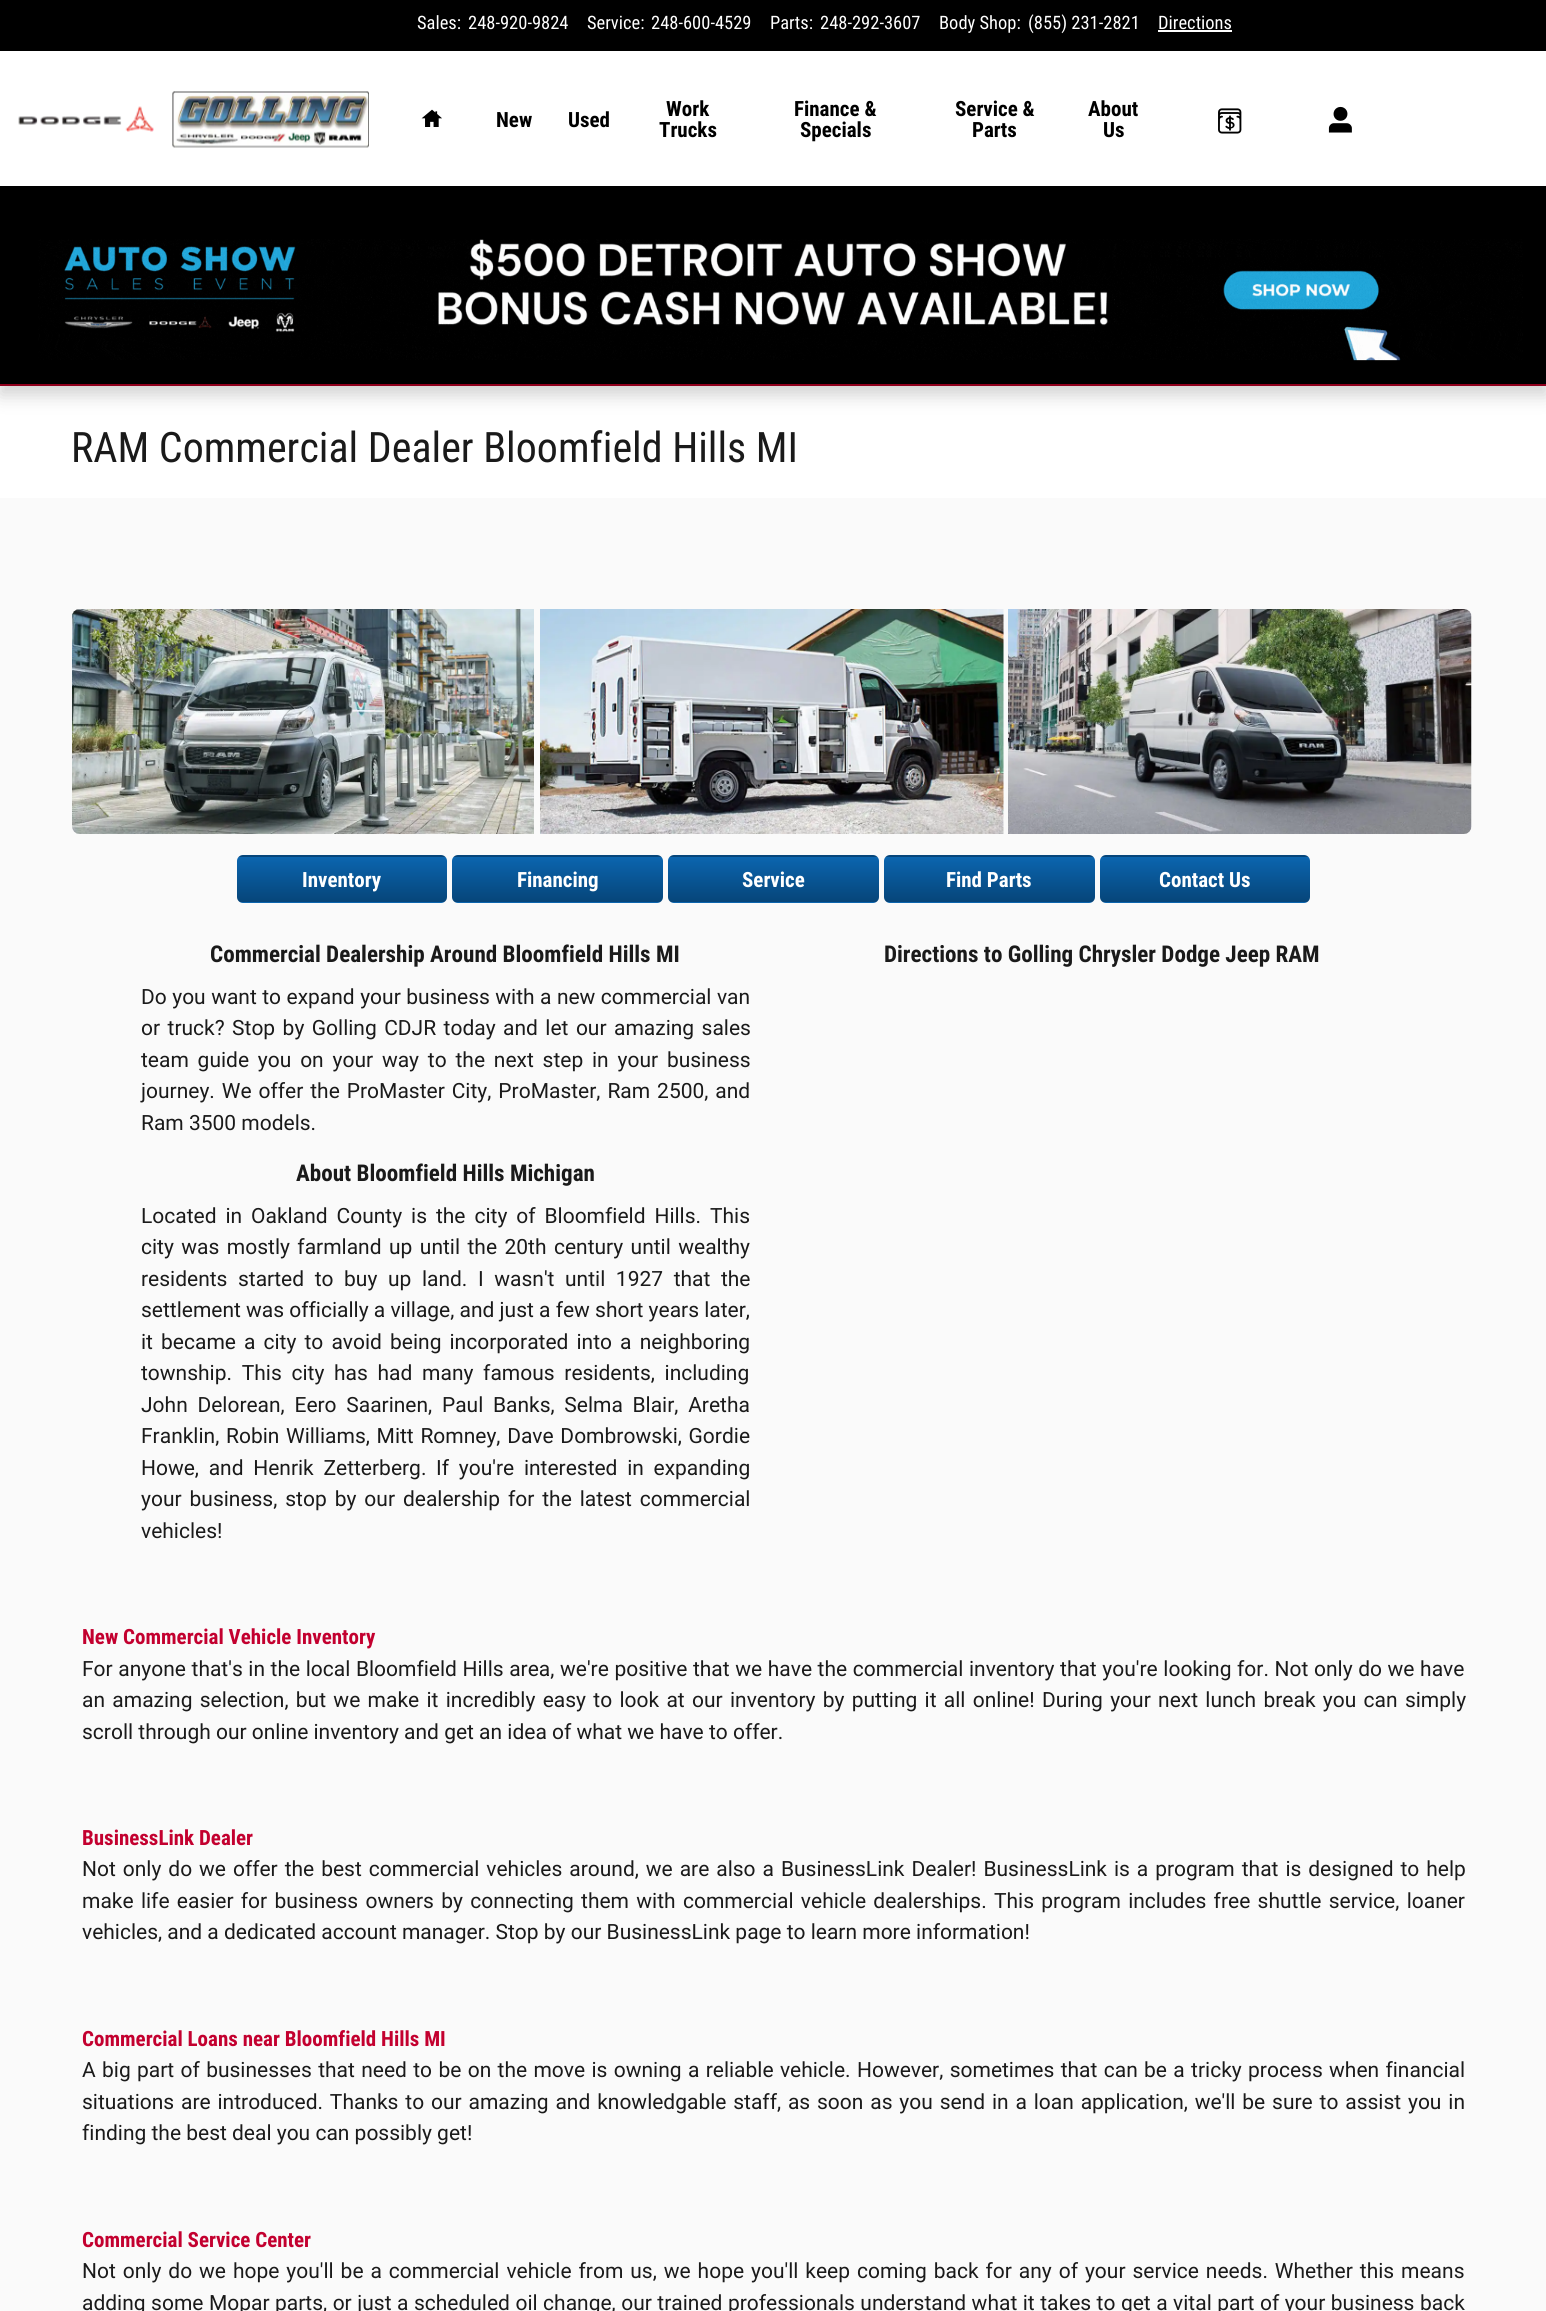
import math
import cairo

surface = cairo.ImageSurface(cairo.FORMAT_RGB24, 1546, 2311)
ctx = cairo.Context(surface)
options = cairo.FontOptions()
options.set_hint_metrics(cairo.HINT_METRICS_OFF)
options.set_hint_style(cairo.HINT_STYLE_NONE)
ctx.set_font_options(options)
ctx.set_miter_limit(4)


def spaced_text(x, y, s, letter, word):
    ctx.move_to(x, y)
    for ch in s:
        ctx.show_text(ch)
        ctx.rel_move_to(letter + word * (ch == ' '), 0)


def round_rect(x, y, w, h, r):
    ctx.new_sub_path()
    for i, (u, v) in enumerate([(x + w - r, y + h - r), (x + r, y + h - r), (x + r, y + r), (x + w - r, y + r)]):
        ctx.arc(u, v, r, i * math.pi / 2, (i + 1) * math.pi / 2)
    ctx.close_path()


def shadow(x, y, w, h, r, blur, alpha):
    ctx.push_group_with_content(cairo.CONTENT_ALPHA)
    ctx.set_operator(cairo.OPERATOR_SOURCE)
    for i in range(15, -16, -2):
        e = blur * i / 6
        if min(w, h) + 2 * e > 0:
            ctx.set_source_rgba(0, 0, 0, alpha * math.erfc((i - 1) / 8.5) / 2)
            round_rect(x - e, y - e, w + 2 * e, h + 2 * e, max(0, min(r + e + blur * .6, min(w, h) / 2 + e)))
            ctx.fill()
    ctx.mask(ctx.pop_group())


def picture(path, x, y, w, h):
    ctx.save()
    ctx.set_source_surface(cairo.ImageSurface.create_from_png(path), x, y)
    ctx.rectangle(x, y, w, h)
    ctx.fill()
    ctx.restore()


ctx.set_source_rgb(0.98, 0.98, 0.98)
ctx.paint()
ctx.set_source_rgb(1, 1, 1)
ctx.rectangle(0, 386, 1546, 112)
ctx.fill()
ctx.set_source_rgb(0, 0, 0)
shadow(0, 9, 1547, 386, 0, 9, 0.18)
ctx.set_source_rgb(1, 1, 1)
ctx.rectangle(0, 51, 1546, 135)
ctx.fill()
ctx.set_source_rgb(0.565, 0, 0.114)
ctx.rectangle(0, 384, 1546, 2)
ctx.fill()
ctx.set_source_rgb(0, 0, 0)
ctx.rectangle(0, 0, 1546, 51)
ctx.fill()
ctx.select_font_face("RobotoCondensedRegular")
ctx.set_font_size(18.5)
ctx.set_source_rgb(1, 1, 1)
ctx.move_to(417, 29)
ctx.show_text("Sales:")
ctx.move_to(468, 29)
ctx.show_text("248-920-9824")
ctx.move_to(587, 29)
ctx.show_text("Service:")
ctx.move_to(651, 29)
ctx.show_text("248-600-4529")
ctx.move_to(770, 29)
ctx.show_text("Parts:")
ctx.move_to(820, 29)
ctx.show_text("248-292-3607")
ctx.move_to(939, 29)
ctx.show_text("Body Shop:")
ctx.move_to(1028, 29)
ctx.show_text("(855) 231-2821")
ctx.move_to(1158, 29)
ctx.show_text("Directions")
ctx.rectangle(1158, 30, 74, 2)
ctx.fill()
picture("img1.png", 18, 106, 136, 26)
picture("img2.png", 172, 91, 197, 57)
picture("img3.png", 421, 109, 21, 18)
ctx.select_font_face("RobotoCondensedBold", cairo.FONT_SLANT_NORMAL, cairo.FONT_WEIGHT_BOLD)
ctx.set_font_size(21)
ctx.set_source_rgb(0, 0, 0)
ctx.move_to(496, 127)
ctx.show_text("New")
ctx.move_to(568, 127)
ctx.show_text("Used")
ctx.move_to(666, 116)
ctx.show_text("Work")
ctx.move_to(659, 137)
ctx.show_text("Trucks")
ctx.move_to(794, 116)
ctx.show_text("Finance &")
ctx.move_to(800, 137)
ctx.show_text("Specials")
ctx.move_to(955, 116)
ctx.show_text("Service &")
ctx.move_to(972, 137)
ctx.show_text("Parts")
ctx.move_to(1088, 116)
ctx.show_text("About")
ctx.move_to(1103, 137)
ctx.show_text("Us")
picture("img4.png", 1218, 108, 24, 26)
picture("img5.png", 1328, 106, 24, 27)
ctx.rectangle(0, 186, 1546, 198)
ctx.fill()
picture("img6.png", 38, 239, 1485, 122)
ctx.select_font_face("RobotoCondensedRegular")
ctx.set_font_size(42)
ctx.set_source_rgb(0.102, 0.102, 0.102)
ctx.move_to(71, 462)
ctx.show_text("RAM Commercial Dealer Bloomfield Hills MI")
picture("img7.png", 72, 609, 462, 225)
picture("img8.png", 540, 609, 464, 225)
picture("img9.png", 1008, 609, 464, 225)
ctx.save()
round_rect(237, 855, 210, 48, 6)
ctx.clip()
gradient = cairo.LinearGradient(342, 812, 342, 857)
gradient.add_color_stop_rgba(0, 0.043, 0.396, 0.686, 1)
gradient.add_color_stop_rgba(1, 0.024, 0.271, 0.475, 1)
ctx.set_source(gradient)
ctx.rectangle(237, 855, 210, 2)
ctx.fill()
gradient = cairo.LinearGradient(342, 857, 342, 902)
gradient.add_color_stop_rgba(0, 0.043, 0.396, 0.686, 1)
gradient.add_color_stop_rgba(1, 0.024, 0.271, 0.475, 1)
ctx.set_source(gradient)
ctx.rectangle(237, 857, 210, 45)
ctx.fill()
gradient = cairo.LinearGradient(342, 902, 342, 947)
gradient.add_color_stop_rgba(0, 0.043, 0.396, 0.686, 1)
gradient.add_color_stop_rgba(1, 0.024, 0.271, 0.475, 1)
ctx.set_source(gradient)
ctx.rectangle(237, 902, 210, 1)
ctx.fill()
ctx.restore()
ctx.select_font_face("RobotoCondensedBold", cairo.FONT_SLANT_NORMAL, cairo.FONT_WEIGHT_BOLD)
ctx.set_font_size(21)
ctx.set_source_rgb(1, 1, 1)
ctx.move_to(302, 887)
ctx.show_text("Inventory")
ctx.save()
round_rect(452, 855, 211, 48, 6)
ctx.clip()
gradient = cairo.LinearGradient(557, 812, 557, 857)
gradient.add_color_stop_rgba(0, 0.043, 0.396, 0.686, 1)
gradient.add_color_stop_rgba(1, 0.024, 0.271, 0.475, 1)
ctx.set_source(gradient)
ctx.rectangle(452, 855, 211, 2)
ctx.fill()
gradient = cairo.LinearGradient(557, 857, 557, 902)
gradient.add_color_stop_rgba(0, 0.043, 0.396, 0.686, 1)
gradient.add_color_stop_rgba(1, 0.024, 0.271, 0.475, 1)
ctx.set_source(gradient)
ctx.rectangle(452, 857, 211, 45)
ctx.fill()
gradient = cairo.LinearGradient(557, 902, 557, 947)
gradient.add_color_stop_rgba(0, 0.043, 0.396, 0.686, 1)
gradient.add_color_stop_rgba(1, 0.024, 0.271, 0.475, 1)
ctx.set_source(gradient)
ctx.rectangle(452, 902, 211, 1)
ctx.fill()
ctx.restore()
ctx.move_to(517, 887)
ctx.show_text("Financing")
ctx.save()
round_rect(668, 855, 211, 48, 6)
ctx.clip()
gradient = cairo.LinearGradient(773, 812, 773, 857)
gradient.add_color_stop_rgba(0, 0.043, 0.396, 0.686, 1)
gradient.add_color_stop_rgba(1, 0.024, 0.271, 0.475, 1)
ctx.set_source(gradient)
ctx.rectangle(668, 855, 211, 2)
ctx.fill()
gradient = cairo.LinearGradient(773, 857, 773, 902)
gradient.add_color_stop_rgba(0, 0.043, 0.396, 0.686, 1)
gradient.add_color_stop_rgba(1, 0.024, 0.271, 0.475, 1)
ctx.set_source(gradient)
ctx.rectangle(668, 857, 211, 45)
ctx.fill()
gradient = cairo.LinearGradient(773, 902, 773, 947)
gradient.add_color_stop_rgba(0, 0.043, 0.396, 0.686, 1)
gradient.add_color_stop_rgba(1, 0.024, 0.271, 0.475, 1)
ctx.set_source(gradient)
ctx.rectangle(668, 902, 211, 1)
ctx.fill()
ctx.restore()
ctx.move_to(742, 887)
ctx.show_text("Service")
ctx.save()
round_rect(884, 855, 211, 48, 6)
ctx.clip()
gradient = cairo.LinearGradient(989, 812, 989, 857)
gradient.add_color_stop_rgba(0, 0.043, 0.396, 0.686, 1)
gradient.add_color_stop_rgba(1, 0.024, 0.271, 0.475, 1)
ctx.set_source(gradient)
ctx.rectangle(884, 855, 211, 2)
ctx.fill()
gradient = cairo.LinearGradient(989, 857, 989, 902)
gradient.add_color_stop_rgba(0, 0.043, 0.396, 0.686, 1)
gradient.add_color_stop_rgba(1, 0.024, 0.271, 0.475, 1)
ctx.set_source(gradient)
ctx.rectangle(884, 857, 211, 45)
ctx.fill()
gradient = cairo.LinearGradient(989, 902, 989, 947)
gradient.add_color_stop_rgba(0, 0.043, 0.396, 0.686, 1)
gradient.add_color_stop_rgba(1, 0.024, 0.271, 0.475, 1)
ctx.set_source(gradient)
ctx.rectangle(884, 902, 211, 1)
ctx.fill()
ctx.restore()
ctx.move_to(946, 887)
ctx.show_text("Find Parts")
ctx.save()
round_rect(1100, 855, 210, 48, 6)
ctx.clip()
gradient = cairo.LinearGradient(1205, 812, 1205, 857)
gradient.add_color_stop_rgba(0, 0.043, 0.396, 0.686, 1)
gradient.add_color_stop_rgba(1, 0.024, 0.271, 0.475, 1)
ctx.set_source(gradient)
ctx.rectangle(1100, 855, 210, 2)
ctx.fill()
gradient = cairo.LinearGradient(1205, 857, 1205, 902)
gradient.add_color_stop_rgba(0, 0.043, 0.396, 0.686, 1)
gradient.add_color_stop_rgba(1, 0.024, 0.271, 0.475, 1)
ctx.set_source(gradient)
ctx.rectangle(1100, 857, 210, 45)
ctx.fill()
gradient = cairo.LinearGradient(1205, 902, 1205, 947)
gradient.add_color_stop_rgba(0, 0.043, 0.396, 0.686, 1)
gradient.add_color_stop_rgba(1, 0.024, 0.271, 0.475, 1)
ctx.set_source(gradient)
ctx.rectangle(1100, 902, 210, 1)
ctx.fill()
ctx.restore()
ctx.move_to(1159, 887)
ctx.show_text("Contact Us")
ctx.set_font_size(23.1)
ctx.set_source_rgb(0.102, 0.102, 0.102)
ctx.move_to(210, 962)
ctx.show_text("Commercial Dealership Around Bloomfield Hills MI")
ctx.select_font_face("Roboto")
ctx.set_font_size(21)
spaced_text(141, 1004, "Do you want to expand your business with a new commercial van", 0, 0.25)
spaced_text(141, 1035, "or truck? Stop by Golling CDJR today and let our amazing sales", 0, 2.25)
spaced_text(141, 1067, "team guide you on your way to the next step in your business", 0, 3.6)
spaced_text(141, 1098, "journey. We offer the ProMaster City, ProMaster, Ram 2500, and", 0, 1.75)
ctx.move_to(141, 1130)
ctx.show_text("Ram 3500 models.")
ctx.select_font_face("RobotoCondensedBold", cairo.FONT_SLANT_NORMAL, cairo.FONT_WEIGHT_BOLD)
ctx.set_font_size(23.1)
ctx.move_to(296, 1181)
ctx.show_text("About Bloomfield Hills Michigan")
ctx.select_font_face("Roboto")
ctx.set_font_size(21)
spaced_text(141, 1223, "Located in Oakland County is the city of Bloomfield Hills. This", 0, 3.75)
spaced_text(141, 1254, "city was mostly farmland up until the 20th century until wealthy", 0, 2.25)
spaced_text(141, 1286, "residents started to buy up land. I wasn't until 1927 that the", 0, 5.4)
ctx.move_to(141, 1317)
ctx.show_text("settlement was officially a village, and just a few short years later,")
spaced_text(141, 1349, "it became a city to avoid being incorporated into a neighboring", 0, 2.9)
spaced_text(141, 1380, "township. This city has had many famous residents, including", 0, 4.5)
spaced_text(141, 1412, "John Delorean, Eero Saarinen, Paul Banks, Selma Blair, Aretha", 0, 4.5)
spaced_text(141, 1443, "Franklin, Robin Williams, Mitt Romney, Dave Dombrowski, Gordie", 0, 1.5)
spaced_text(141, 1475, "Howe, and Henrik Zetterberg. If you're interested in expanding", 0, 4.5)
spaced_text(141, 1506, "your business, stop by our dealership for the latest commercial", 0, 2.75)
ctx.move_to(141, 1538)
ctx.show_text("vehicles!")
ctx.select_font_face("RobotoCondensedBold", cairo.FONT_SLANT_NORMAL, cairo.FONT_WEIGHT_BOLD)
ctx.set_font_size(23.1)
ctx.move_to(884, 962)
ctx.show_text("Directions to Golling Chrysler Dodge Jeep RAM")
ctx.set_font_size(21)
ctx.set_source_rgb(0.765, 0, 0.184)
ctx.move_to(82, 1644)
ctx.show_text("New Commercial Vehicle Inventory")
ctx.select_font_face("Roboto")
ctx.set_source_rgb(0.102, 0.102, 0.102)
spaced_text(82, 1676, "For anyone that's in the local Bloomfield Hills area, we're positive that we have the commercial inventory that you're looking for. Not only do we have", 0, 0.4)
spaced_text(82, 1707, "an amazing selection, but we make it incredibly easy to look at our inventory by putting it all online! During your next lunch break you can simply", 0, 2.1)
ctx.move_to(82, 1739)
ctx.show_text("scroll through our online inventory and get an idea of what we have to offer.")
ctx.select_font_face("RobotoCondensedBold", cairo.FONT_SLANT_NORMAL, cairo.FONT_WEIGHT_BOLD)
ctx.set_source_rgb(0.765, 0, 0.184)
ctx.move_to(82, 1845)
ctx.show_text("BusinessLink Dealer")
ctx.select_font_face("Roboto")
ctx.set_source_rgb(0.102, 0.102, 0.102)
spaced_text(82, 1876, "Not only do we offer the best commercial vehicles around, we are also a BusinessLink Dealer! BusinessLink is a program that is designed to help", 0, 1.75)
spaced_text(82, 1908, "make life easier for business owners by connecting them with commercial vehicle dealerships. This program includes free shuttle service, loaner", 0, 2.1)
ctx.move_to(82, 1939)
ctx.show_text("vehicles, and a dedicated account manager. Stop by our BusinessLink page to learn more information!")
ctx.select_font_face("RobotoCondensedBold", cairo.FONT_SLANT_NORMAL, cairo.FONT_WEIGHT_BOLD)
ctx.set_source_rgb(0.765, 0, 0.184)
ctx.move_to(82, 2046)
ctx.show_text("Commercial Loans near Bloomfield Hills MI")
ctx.select_font_face("Roboto")
ctx.set_source_rgb(0.102, 0.102, 0.102)
spaced_text(82, 2077, "A big part of businesses that need to be on the move is owning a reliable vehicle. However, sometimes that can be a tricky process when financial", 0, 1.15)
spaced_text(82, 2109, "situations are introduced. Thanks to our amazing and knowledgable staff, as soon as you send in a loan application, we'll be sure to assist you in", 0, 1.65)
ctx.move_to(82, 2140)
ctx.show_text("finding the best deal you can possibly get!")
ctx.select_font_face("RobotoCondensedBold", cairo.FONT_SLANT_NORMAL, cairo.FONT_WEIGHT_BOLD)
ctx.set_source_rgb(0.765, 0, 0.184)
ctx.move_to(82, 2247)
ctx.show_text("Commercial Service Center")
ctx.select_font_face("Roboto")
ctx.set_source_rgb(0.102, 0.102, 0.102)
spaced_text(82, 2278, "Not only do we hope you'll be a commercial vehicle from us, we hope you'll keep coming back for any of your service needs. Whether this means", 0, 1.75)
spaced_text(82, 2310, "adding some Mopar parts, or just a scheduled oil change, our trained professionals understand what it takes to get a vital part of your business back", 0, 0.3)
surface.write_to_png("page.png")
